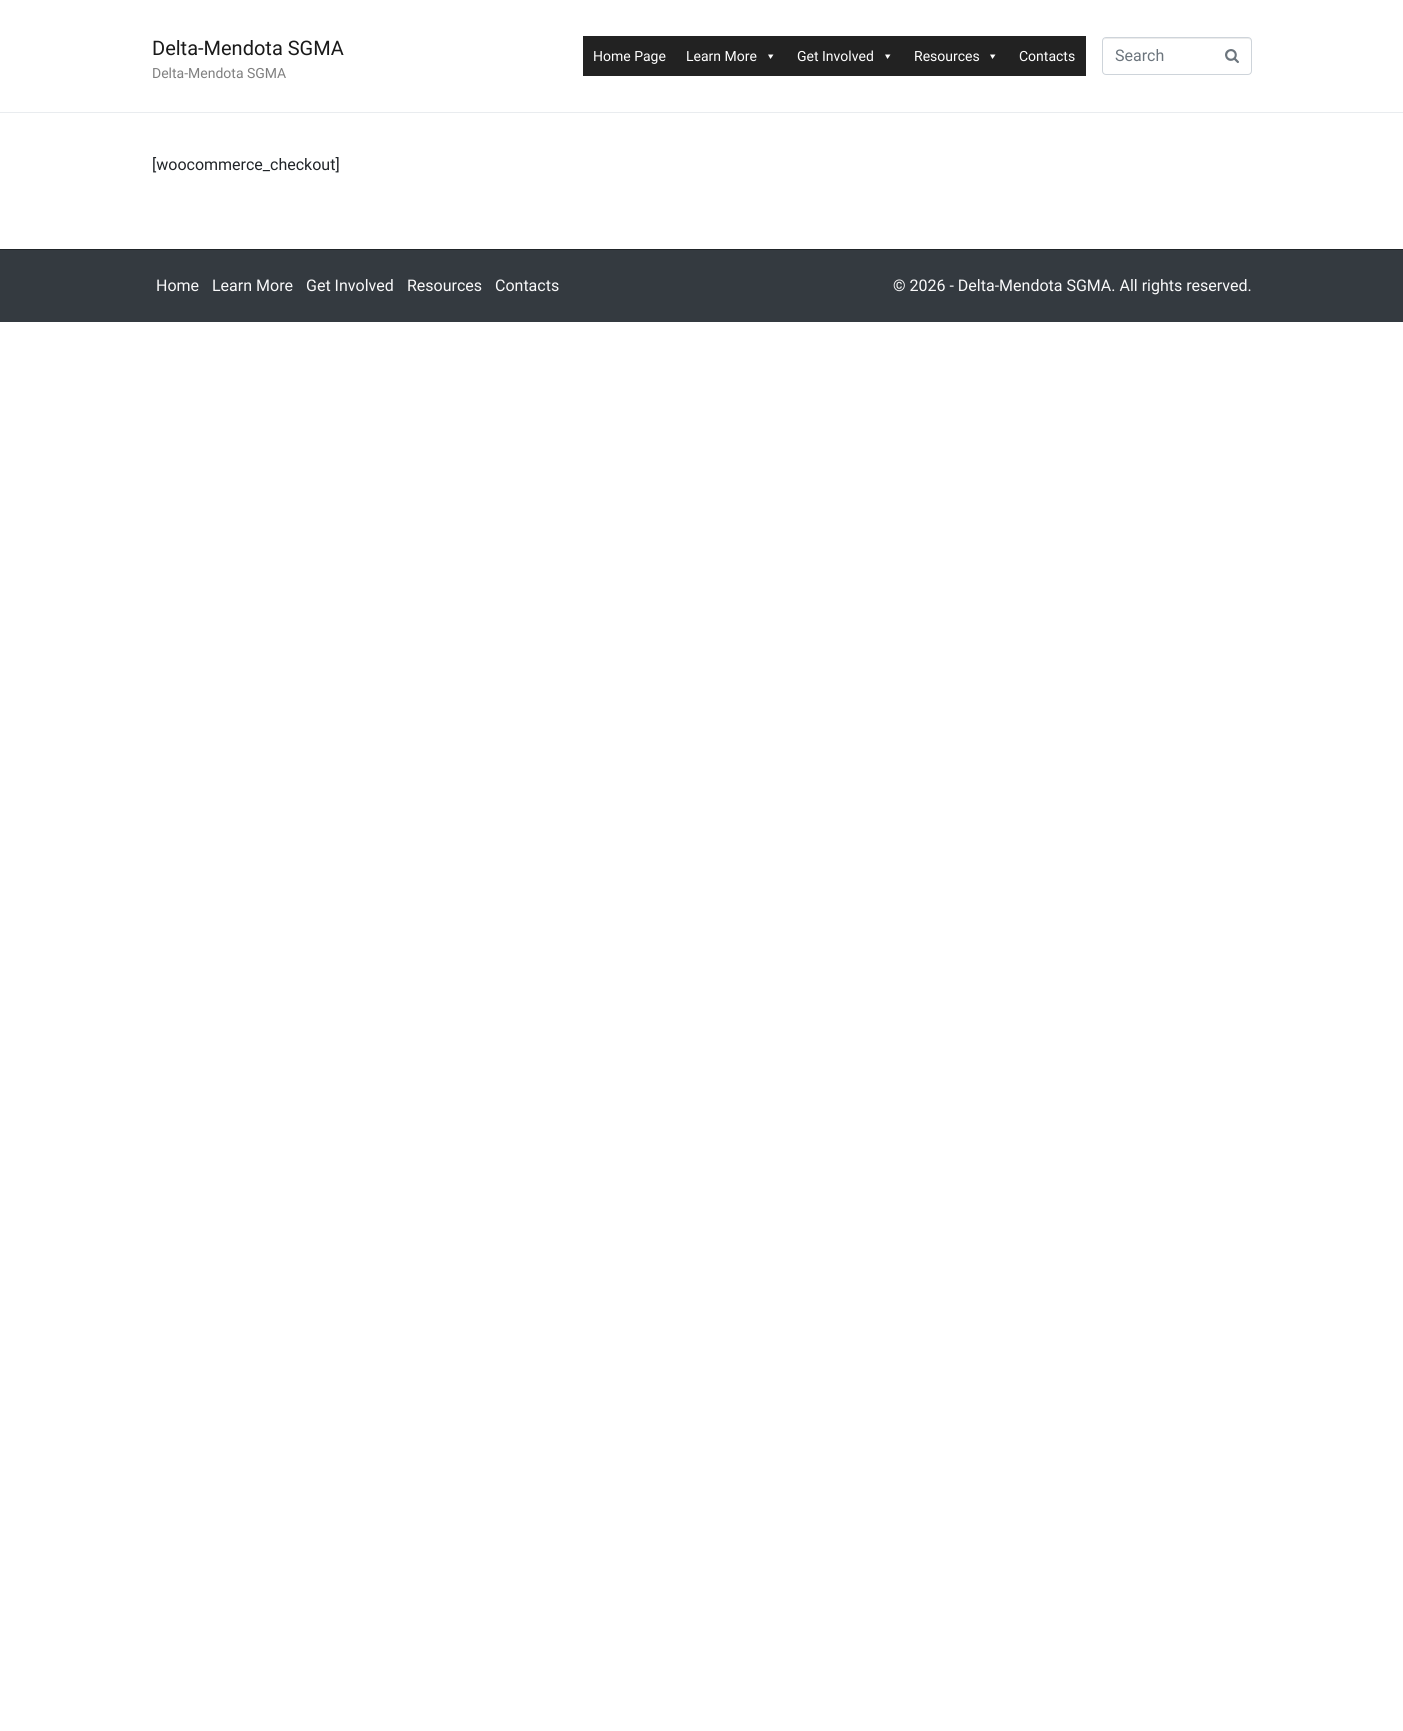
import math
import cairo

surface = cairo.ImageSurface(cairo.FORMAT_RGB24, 1403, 1731)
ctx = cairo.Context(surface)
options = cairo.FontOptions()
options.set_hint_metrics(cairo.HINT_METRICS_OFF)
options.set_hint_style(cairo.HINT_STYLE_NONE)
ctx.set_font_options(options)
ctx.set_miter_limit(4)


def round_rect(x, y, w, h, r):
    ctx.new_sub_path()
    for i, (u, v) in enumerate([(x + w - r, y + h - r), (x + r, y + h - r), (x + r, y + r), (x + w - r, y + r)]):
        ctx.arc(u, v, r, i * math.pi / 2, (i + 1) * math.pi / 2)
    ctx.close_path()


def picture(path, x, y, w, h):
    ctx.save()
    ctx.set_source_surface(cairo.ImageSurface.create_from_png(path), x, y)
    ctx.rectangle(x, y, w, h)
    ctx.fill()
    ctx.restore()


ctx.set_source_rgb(1, 1, 1)
ctx.paint()
ctx.set_source_rgb(0.914, 0.925, 0.937)
ctx.rectangle(0, 112, 1403, 1)
ctx.fill()
ctx.select_font_face("Roboto")
ctx.set_font_size(20)
ctx.set_source_rgb(0.102, 0.102, 0.102)
ctx.move_to(152, 55)
ctx.show_text("Delta-Mendota SGMA")
ctx.set_font_size(14)
ctx.set_source_rgb(0.502, 0.502, 0.502)
ctx.move_to(152, 78)
ctx.show_text("Delta-Mendota SGMA")
ctx.set_source_rgb(0.133, 0.133, 0.133)
ctx.rectangle(583, 36, 503, 40)
ctx.fill()
ctx.set_source_rgb(1, 1, 1)
ctx.move_to(593, 61)
ctx.show_text("Home Page")
ctx.move_to(686, 61)
ctx.show_text("Learn More")
ctx.new_path()
ctx.move_to(773.5, 54.5)
ctx.line_to(770.5, 59)
ctx.line_to(768, 54.5)
ctx.close_path()
ctx.fill()
ctx.move_to(797, 61)
ctx.show_text("Get Involved")
ctx.new_path()
ctx.move_to(890.5, 54.5)
ctx.line_to(887.5, 59)
ctx.line_to(885, 54.5)
ctx.close_path()
ctx.fill()
ctx.move_to(914, 61)
ctx.show_text("Resources")
ctx.new_path()
ctx.move_to(995.5, 54.5)
ctx.line_to(992.5, 59)
ctx.line_to(990, 54.5)
ctx.close_path()
ctx.fill()
ctx.move_to(1019, 61)
ctx.show_text("Contacts")
ctx.save()
ctx.rectangle(1102, 37, 150, 38)
ctx.clip()
ctx.set_source_rgb(0.925, 0.925, 0.925)
ctx.new_path()
ctx.move_to(1106, 39)
ctx.line_to(1248, 39)
ctx.curve_to(1250, 39, 1251, 40, 1251, 42)
ctx.curve_to(1251, 40, 1251, 39, 1249, 38)
ctx.line_to(1130, 38)
ctx.curve_to(1122, 38, 1103, 33, 1103, 42)
ctx.curve_to(1103, 40, 1104, 39, 1106, 39)
ctx.close_path()
ctx.fill()
ctx.restore()
round_rect(1102.5, 37.5, 149, 37, 3.5)
ctx.set_source_rgb(0.808, 0.831, 0.855)
ctx.set_line_width(1)
ctx.stroke()
ctx.set_font_size(16)
ctx.set_source_rgb(0.424, 0.459, 0.49)
ctx.move_to(1115, 61)
ctx.show_text("Search")
picture("img1.png", 1225, 49, 14, 15)
ctx.set_source_rgb(0.129, 0.145, 0.161)
ctx.move_to(152, 170)
ctx.show_text("[woocommerce_checkout]")
ctx.set_source_rgb(0.204, 0.227, 0.251)
ctx.rectangle(0, 250, 1403, 72)
ctx.fill()
ctx.set_source_rgb(0.129, 0.145, 0.161)
ctx.rectangle(0, 249, 1403, 1)
ctx.fill()
ctx.set_source_rgb(0.973, 0.976, 0.98)
ctx.move_to(156, 291)
ctx.show_text("Home")
ctx.move_to(212, 291)
ctx.show_text("Learn More")
ctx.move_to(306, 291)
ctx.show_text("Get Involved")
ctx.move_to(407, 291)
ctx.show_text("Resources")
ctx.move_to(495, 291)
ctx.show_text("Contacts")
ctx.move_to(893, 291)
ctx.show_text("© 2026 - Delta-Mendota SGMA. All rights reserved.")
surface.write_to_png("page.png")
